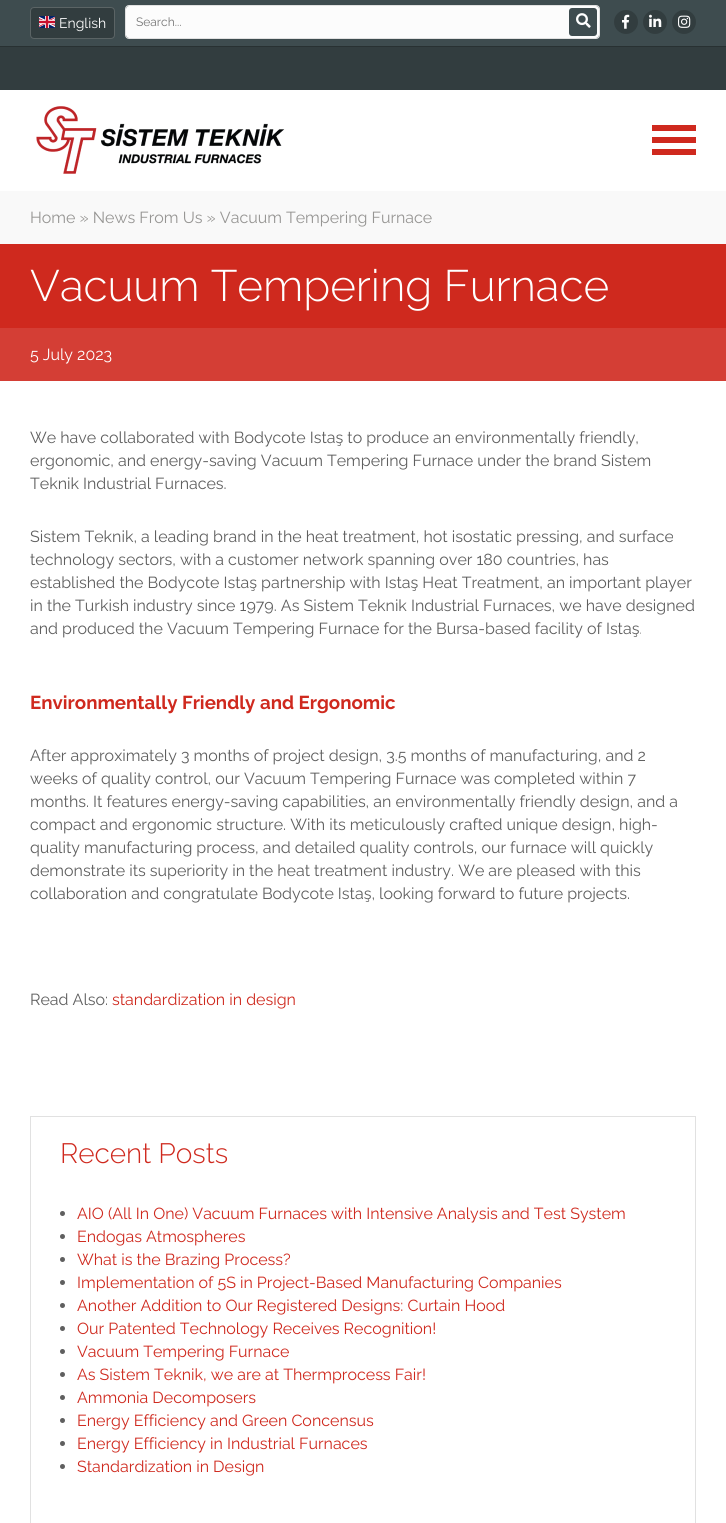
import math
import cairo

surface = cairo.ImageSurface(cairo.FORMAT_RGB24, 726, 1523)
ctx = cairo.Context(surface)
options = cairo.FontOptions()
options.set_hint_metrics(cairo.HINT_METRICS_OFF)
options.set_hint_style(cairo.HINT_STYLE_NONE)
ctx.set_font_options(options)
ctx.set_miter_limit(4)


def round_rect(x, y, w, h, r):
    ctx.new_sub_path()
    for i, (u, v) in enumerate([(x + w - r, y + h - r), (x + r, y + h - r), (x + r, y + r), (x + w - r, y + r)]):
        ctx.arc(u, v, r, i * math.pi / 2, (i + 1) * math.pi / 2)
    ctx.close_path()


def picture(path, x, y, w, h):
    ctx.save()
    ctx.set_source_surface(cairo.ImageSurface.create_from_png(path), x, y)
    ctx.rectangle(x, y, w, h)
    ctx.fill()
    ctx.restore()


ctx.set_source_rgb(1, 1, 1)
ctx.paint()
ctx.set_source_rgb(0.243, 0.298, 0.31)
ctx.rectangle(0, 0, 726, 46)
ctx.fill()
ctx.set_source_rgb(0.196, 0.239, 0.247)
round_rect(30, 7, 85, 32, 4)
ctx.fill()
round_rect(30.5, 7.5, 84, 31, 3.5)
ctx.set_source_rgba(1, 1, 1, 0.2)
ctx.set_line_width(1)
ctx.stroke()
picture("img1.png", 39, 16, 16, 12)
ctx.select_font_face("Raleway")
ctx.set_font_size(14)
ctx.set_source_rgb(1, 1, 1)
ctx.move_to(59, 28)
ctx.show_text("English")
round_rect(125.5, 5.5, 474, 33, 3.5)
ctx.set_source_rgb(0.882, 0.882, 0.882)
ctx.stroke()
ctx.set_source_rgb(0.988, 0.988, 0.988)
round_rect(126, 6, 473, 32, 3)
ctx.fill()
ctx.set_font_size(12)
ctx.set_source_rgb(0.459, 0.459, 0.459)
ctx.move_to(136, 26)
ctx.show_text("Search...")
ctx.set_source_rgb(0.243, 0.298, 0.31)
round_rect(569, 8, 28, 28, 3)
ctx.fill()
picture("img2.png", 576, 13, 15, 15)
ctx.set_source_rgb(0.196, 0.239, 0.247)
ctx.arc(626, 22, 12, 0, 2 * math.pi)
ctx.fill()
picture("img3.png", 622, 14, 8, 15)
ctx.arc(655, 22, 12, 0, 2 * math.pi)
ctx.fill()
picture("img4.png", 649, 14, 13, 13)
ctx.arc(684, 22, 12, 0, 2 * math.pi)
ctx.fill()
picture("img5.png", 678, 15, 13, 13)
ctx.rectangle(0, 47, 726, 43)
ctx.fill()
ctx.set_source_rgb(0.157, 0.192, 0.196)
ctx.rectangle(0, 46, 726, 1)
ctx.fill()
picture("img6.png", 36, 106, 249, 68)
ctx.set_source_rgb(0.812, 0.161, 0.118)
ctx.rectangle(652, 149, 44, 6)
ctx.fill()
ctx.rectangle(652, 125, 44, 6)
ctx.fill()
ctx.rectangle(652, 137, 44, 6)
ctx.fill()
ctx.set_source_rgb(0.976, 0.976, 0.976)
ctx.rectangle(0, 191, 726, 53)
ctx.fill()
ctx.set_font_size(16)
ctx.set_source_rgb(0.588, 0.584, 0.576)
ctx.move_to(30, 223)
ctx.show_text("Home » News From Us » Vacuum Tempering Furnace")
ctx.set_source_rgb(0.812, 0.161, 0.118)
ctx.rectangle(0, 244, 726, 84)
ctx.fill()
ctx.select_font_face("Raleway Light")
ctx.set_font_size(44)
ctx.set_source_rgb(1, 1, 1)
ctx.move_to(30, 301)
ctx.show_text("Vacuum Tempering Furnace")
ctx.set_source_rgb(0.831, 0.243, 0.208)
ctx.rectangle(0, 328, 726, 53)
ctx.fill()
ctx.select_font_face("Raleway")
ctx.set_font_size(16)
ctx.set_source_rgb(1, 1, 1)
ctx.move_to(30, 360)
ctx.show_text("5 July 2023")
ctx.set_source_rgb(0.373, 0.373, 0.373)
ctx.move_to(30, 443)
ctx.show_text("We have collaborated with Bodycote Istaş to produce an environmentally friendly,")
ctx.move_to(30, 466)
ctx.show_text("ergonomic, and energy-saving Vacuum Tempering Furnace under the brand Sistem")
ctx.move_to(30, 489)
ctx.show_text("Teknik Industrial Furnaces.")
ctx.move_to(30, 542)
ctx.show_text("Sistem Teknik, a leading brand in the heat treatment, hot isostatic pressing, and surface")
ctx.move_to(30, 565)
ctx.show_text("technology sectors, with a customer network spanning over 180 countries, has")
ctx.move_to(30, 588)
ctx.show_text("established the Bodycote Istaş partnership with Istaş Heat Treatment, an important player")
ctx.move_to(30, 611)
ctx.show_text("in the Turkish industry since 1979. As Sistem Teknik Industrial Furnaces, we have designed")
ctx.move_to(30, 634)
ctx.show_text("and produced the Vacuum Tempering Furnace for the Bursa-based facility of Istaş.")
ctx.select_font_face("Raleway", cairo.FONT_SLANT_NORMAL, cairo.FONT_WEIGHT_BOLD)
ctx.set_font_size(18.7)
ctx.set_source_rgb(0.812, 0.161, 0.118)
ctx.move_to(30, 709)
ctx.show_text("Environmentally Friendly and Ergonomic")
ctx.select_font_face("Raleway")
ctx.set_font_size(16)
ctx.set_source_rgb(0.373, 0.373, 0.373)
ctx.move_to(30, 761)
ctx.show_text("After approximately 3 months of project design, 3.5 months of manufacturing, and 2")
ctx.move_to(30, 784)
ctx.show_text("weeks of quality control, our Vacuum Tempering Furnace was completed within 7")
ctx.move_to(30, 807)
ctx.show_text("months. It features energy-saving capabilities, an environmentally friendly design, and a")
ctx.move_to(30, 830)
ctx.show_text("compact and ergonomic structure. With its meticulously crafted unique design, high-")
ctx.move_to(30, 853)
ctx.show_text("quality manufacturing process, and detailed quality controls, our furnace will quickly")
ctx.move_to(30, 876)
ctx.show_text("demonstrate its superiority in the heat treatment industry. We are pleased with this")
ctx.move_to(30, 899)
ctx.show_text("collaboration and congratulate Bodycote Istaş, looking forward to future projects.")
ctx.move_to(30, 1005)
ctx.show_text("Read Also:")
ctx.set_source_rgb(0.812, 0.161, 0.118)
ctx.move_to(112, 1005)
ctx.show_text("standardization in design")
ctx.rectangle(30.5, 1116.5, 665, 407)
ctx.set_source_rgb(0.882, 0.882, 0.882)
ctx.stroke()
ctx.select_font_face("Raleway Light")
ctx.set_font_size(28)
ctx.set_source_rgb(0.812, 0.161, 0.118)
ctx.move_to(60, 1163)
ctx.show_text("Recent Posts")
ctx.set_source_rgb(0.373, 0.373, 0.373)
ctx.new_path()
ctx.arc(62.5, 1213.5, 2.5, 0, 2 * math.pi)
ctx.fill()
ctx.select_font_face("Raleway")
ctx.set_font_size(16)
ctx.set_source_rgb(0.812, 0.161, 0.118)
ctx.move_to(77, 1219)
ctx.show_text("AIO (All In One) Vacuum Furnaces with Intensive Analysis and Test System")
ctx.set_source_rgb(0.373, 0.373, 0.373)
ctx.new_path()
ctx.arc(62.5, 1236.5, 2.5, 0, 2 * math.pi)
ctx.fill()
ctx.set_source_rgb(0.812, 0.161, 0.118)
ctx.move_to(77, 1242)
ctx.show_text("Endogas Atmospheres")
ctx.set_source_rgb(0.373, 0.373, 0.373)
ctx.new_path()
ctx.arc(62.5, 1259.5, 2.5, 0, 2 * math.pi)
ctx.fill()
ctx.set_source_rgb(0.812, 0.161, 0.118)
ctx.move_to(77, 1265)
ctx.show_text("What is the Brazing Process?")
ctx.set_source_rgb(0.373, 0.373, 0.373)
ctx.new_path()
ctx.arc(62.5, 1282.5, 2.5, 0, 2 * math.pi)
ctx.fill()
ctx.set_source_rgb(0.812, 0.161, 0.118)
ctx.move_to(77, 1288)
ctx.show_text("Implementation of 5S in Project-Based Manufacturing Companies")
ctx.set_source_rgb(0.373, 0.373, 0.373)
ctx.new_path()
ctx.arc(62.5, 1305.5, 2.5, 0, 2 * math.pi)
ctx.fill()
ctx.set_source_rgb(0.812, 0.161, 0.118)
ctx.move_to(77, 1311)
ctx.show_text("Another Addition to Our Registered Designs: Curtain Hood")
ctx.set_source_rgb(0.373, 0.373, 0.373)
ctx.new_path()
ctx.arc(62.5, 1328.5, 2.5, 0, 2 * math.pi)
ctx.fill()
ctx.set_source_rgb(0.812, 0.161, 0.118)
ctx.move_to(77, 1334)
ctx.show_text("Our Patented Technology Receives Recognition!")
ctx.set_source_rgb(0.373, 0.373, 0.373)
ctx.new_path()
ctx.arc(62.5, 1351.5, 2.5, 0, 2 * math.pi)
ctx.fill()
ctx.set_source_rgb(0.812, 0.161, 0.118)
ctx.move_to(77, 1357)
ctx.show_text("Vacuum Tempering Furnace")
ctx.set_source_rgb(0.373, 0.373, 0.373)
ctx.new_path()
ctx.arc(62.5, 1374.5, 2.5, 0, 2 * math.pi)
ctx.fill()
ctx.set_source_rgb(0.812, 0.161, 0.118)
ctx.move_to(77, 1380)
ctx.show_text("As Sistem Teknik, we are at Thermprocess Fair!")
ctx.set_source_rgb(0.373, 0.373, 0.373)
ctx.new_path()
ctx.arc(62.5, 1397.5, 2.5, 0, 2 * math.pi)
ctx.fill()
ctx.set_source_rgb(0.812, 0.161, 0.118)
ctx.move_to(77, 1403)
ctx.show_text("Ammonia Decomposers")
ctx.set_source_rgb(0.373, 0.373, 0.373)
ctx.new_path()
ctx.arc(62.5, 1420.5, 2.5, 0, 2 * math.pi)
ctx.fill()
ctx.set_source_rgb(0.812, 0.161, 0.118)
ctx.move_to(77, 1426)
ctx.show_text("Energy Efficiency and Green Concensus")
ctx.set_source_rgb(0.373, 0.373, 0.373)
ctx.new_path()
ctx.arc(62.5, 1443.5, 2.5, 0, 2 * math.pi)
ctx.fill()
ctx.set_source_rgb(0.812, 0.161, 0.118)
ctx.move_to(77, 1449)
ctx.show_text("Energy Efficiency in Industrial Furnaces")
ctx.set_source_rgb(0.373, 0.373, 0.373)
ctx.new_path()
ctx.arc(62.5, 1466.5, 2.5, 0, 2 * math.pi)
ctx.fill()
ctx.set_source_rgb(0.812, 0.161, 0.118)
ctx.move_to(77, 1472)
ctx.show_text("Standardization in Design")
surface.write_to_png("page.png")
